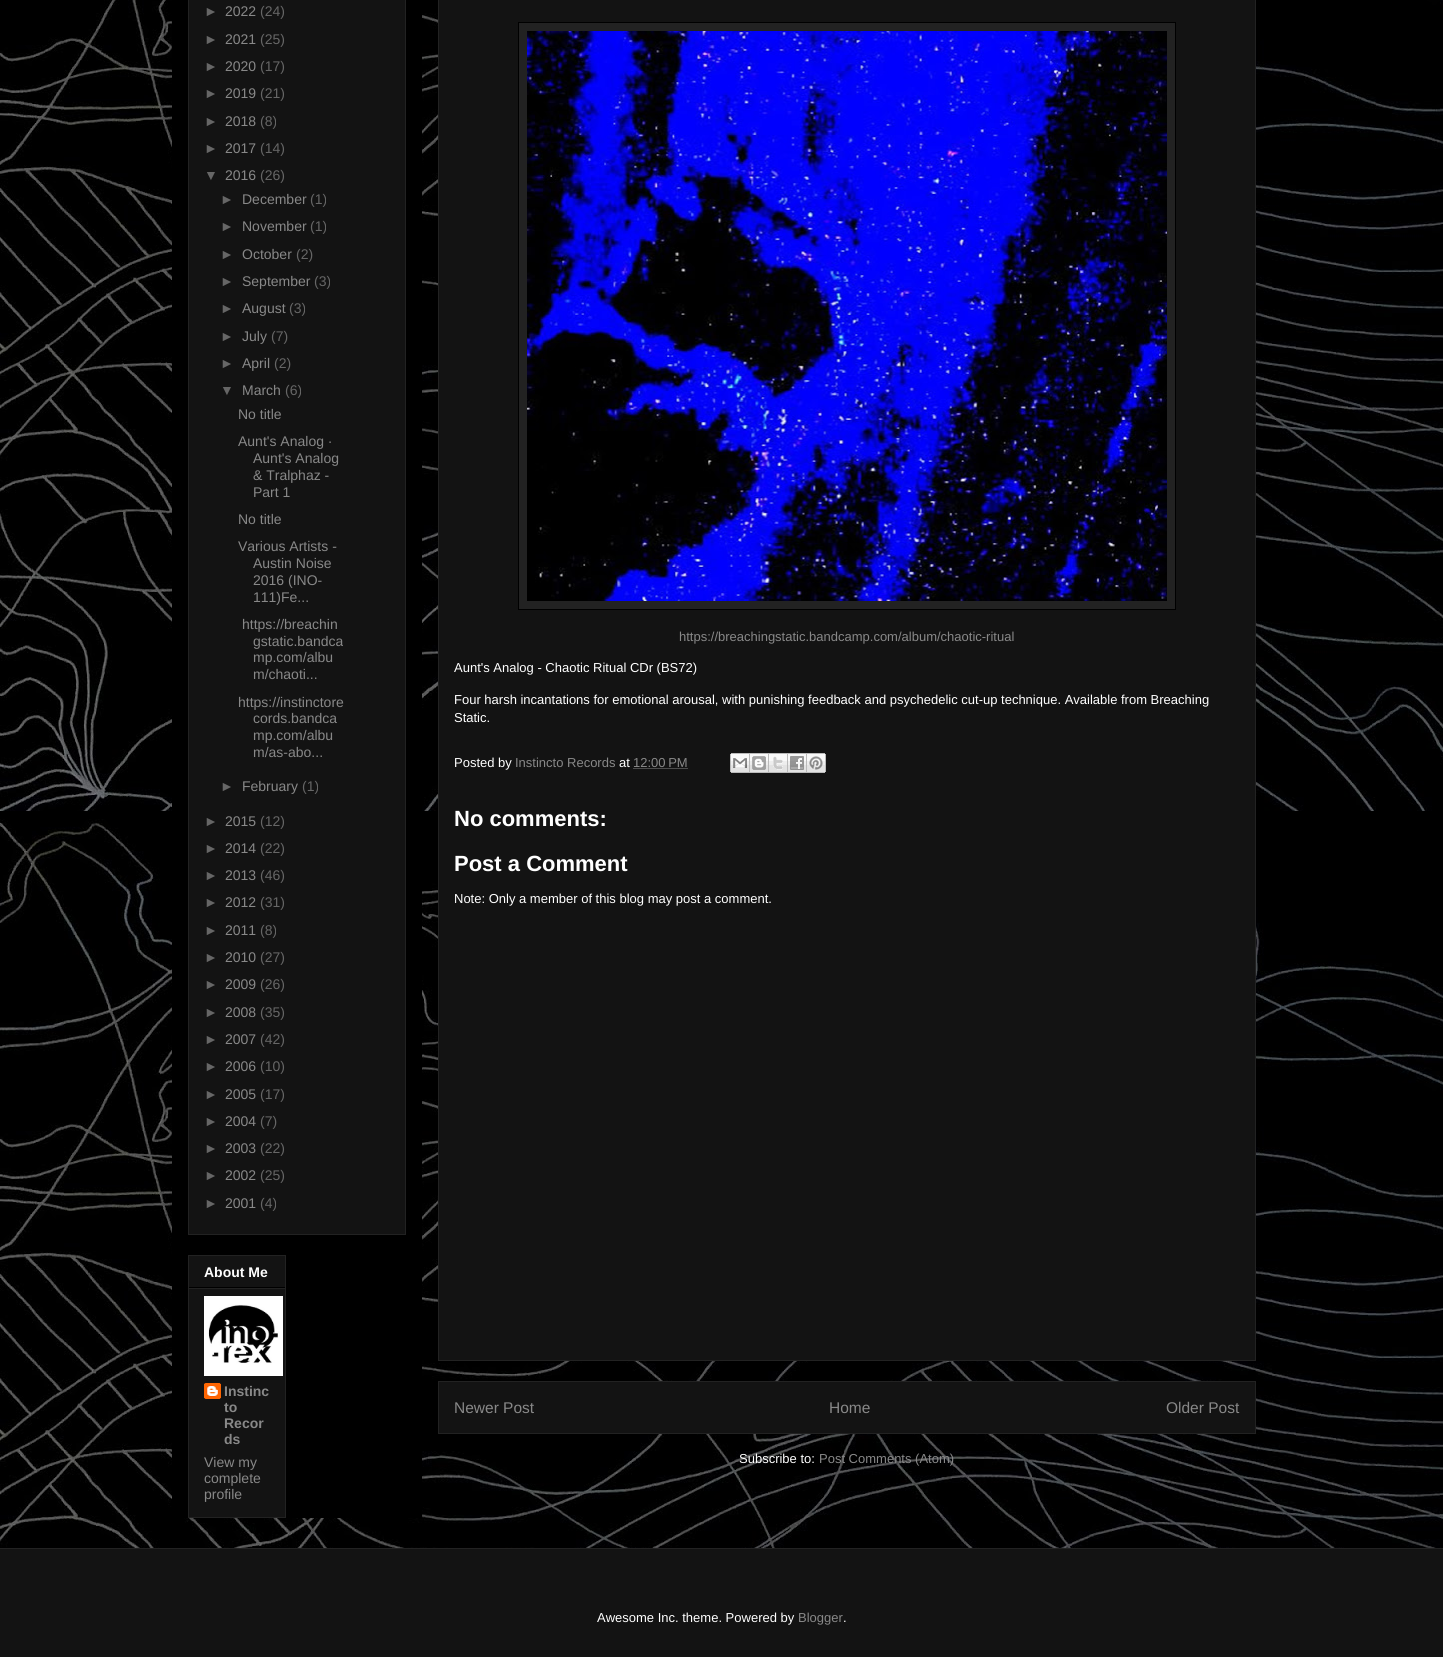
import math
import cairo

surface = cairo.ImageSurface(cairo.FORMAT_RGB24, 1443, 1657)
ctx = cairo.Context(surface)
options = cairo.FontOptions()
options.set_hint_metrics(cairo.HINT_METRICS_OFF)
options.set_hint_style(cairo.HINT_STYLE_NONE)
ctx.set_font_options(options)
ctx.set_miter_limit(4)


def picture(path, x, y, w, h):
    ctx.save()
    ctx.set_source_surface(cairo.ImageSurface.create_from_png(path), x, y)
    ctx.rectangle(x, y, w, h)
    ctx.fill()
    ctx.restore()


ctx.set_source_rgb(1, 1, 1)
ctx.paint()
picture("img1.png", 0, 0, 1443, 1548)
ctx.set_source_rgb(0, 0, 0)
ctx.rectangle(172, 0, 250, 1518)
ctx.fill()
ctx.set_source_rgb(0.078, 0.078, 0.078)
ctx.rectangle(188.5, -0.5, 217, 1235)
ctx.fill_preserve()
ctx.set_source_rgb(0.133, 0.133, 0.133)
ctx.set_line_width(1)
ctx.stroke()
ctx.select_font_face("Liberation Sans")
ctx.set_font_size(14)
ctx.set_source_rgb(0.4, 0.4, 0.4)
ctx.move_to(204, 16)
ctx.show_text("►")
ctx.set_source_rgb(0.533, 0.533, 0.533)
ctx.move_to(225, 16)
ctx.show_text("2022")
ctx.set_source_rgb(0.4, 0.4, 0.4)
ctx.move_to(260, 16)
ctx.show_text("(24)")
ctx.move_to(204, 44)
ctx.show_text("►")
ctx.set_source_rgb(0.533, 0.533, 0.533)
ctx.move_to(225, 44)
ctx.show_text("2021")
ctx.set_source_rgb(0.4, 0.4, 0.4)
ctx.move_to(260, 44)
ctx.show_text("(25)")
ctx.move_to(204, 71)
ctx.show_text("►")
ctx.set_source_rgb(0.533, 0.533, 0.533)
ctx.move_to(225, 71)
ctx.show_text("2020")
ctx.set_source_rgb(0.4, 0.4, 0.4)
ctx.move_to(260, 71)
ctx.show_text("(17)")
ctx.move_to(204, 98)
ctx.show_text("►")
ctx.set_source_rgb(0.533, 0.533, 0.533)
ctx.move_to(225, 98)
ctx.show_text("2019")
ctx.set_source_rgb(0.4, 0.4, 0.4)
ctx.move_to(260, 98)
ctx.show_text("(21)")
ctx.move_to(204, 126)
ctx.show_text("►")
ctx.set_source_rgb(0.533, 0.533, 0.533)
ctx.move_to(225, 126)
ctx.show_text("2018")
ctx.set_source_rgb(0.4, 0.4, 0.4)
ctx.move_to(260, 126)
ctx.show_text("(8)")
ctx.move_to(204, 153)
ctx.show_text("►")
ctx.set_source_rgb(0.533, 0.533, 0.533)
ctx.move_to(225, 153)
ctx.show_text("2017")
ctx.set_source_rgb(0.4, 0.4, 0.4)
ctx.move_to(260, 153)
ctx.show_text("(14)")
ctx.move_to(204, 180)
ctx.show_text("▼")
ctx.set_source_rgb(0.533, 0.533, 0.533)
ctx.move_to(225, 180)
ctx.show_text("2016")
ctx.set_source_rgb(0.4, 0.4, 0.4)
ctx.move_to(260, 180)
ctx.show_text("(26)")
ctx.move_to(220, 204)
ctx.show_text("►")
ctx.set_source_rgb(0.533, 0.533, 0.533)
ctx.move_to(242, 204)
ctx.show_text("December")
ctx.set_source_rgb(0.4, 0.4, 0.4)
ctx.move_to(310, 204)
ctx.show_text("(1)")
ctx.move_to(220, 231)
ctx.show_text("►")
ctx.set_source_rgb(0.533, 0.533, 0.533)
ctx.move_to(242, 231)
ctx.show_text("November")
ctx.set_source_rgb(0.4, 0.4, 0.4)
ctx.move_to(310, 231)
ctx.show_text("(1)")
ctx.move_to(220, 259)
ctx.show_text("►")
ctx.set_source_rgb(0.533, 0.533, 0.533)
ctx.move_to(242, 259)
ctx.show_text("October")
ctx.set_source_rgb(0.4, 0.4, 0.4)
ctx.move_to(296, 259)
ctx.show_text("(2)")
ctx.move_to(220, 286)
ctx.show_text("►")
ctx.set_source_rgb(0.533, 0.533, 0.533)
ctx.move_to(242, 286)
ctx.show_text("September")
ctx.set_source_rgb(0.4, 0.4, 0.4)
ctx.move_to(314, 286)
ctx.show_text("(3)")
ctx.move_to(220, 313)
ctx.show_text("►")
ctx.set_source_rgb(0.533, 0.533, 0.533)
ctx.move_to(242, 313)
ctx.show_text("August")
ctx.set_source_rgb(0.4, 0.4, 0.4)
ctx.move_to(289, 313)
ctx.show_text("(3)")
ctx.move_to(220, 341)
ctx.show_text("►")
ctx.set_source_rgb(0.533, 0.533, 0.533)
ctx.move_to(242, 341)
ctx.show_text("July")
ctx.set_source_rgb(0.4, 0.4, 0.4)
ctx.move_to(271, 341)
ctx.show_text("(7)")
ctx.move_to(220, 368)
ctx.show_text("►")
ctx.set_source_rgb(0.533, 0.533, 0.533)
ctx.move_to(242, 368)
ctx.show_text("April")
ctx.set_source_rgb(0.4, 0.4, 0.4)
ctx.move_to(274, 368)
ctx.show_text("(2)")
ctx.move_to(220, 395)
ctx.show_text("▼")
ctx.set_source_rgb(0.533, 0.533, 0.533)
ctx.move_to(242, 395)
ctx.show_text("March")
ctx.set_source_rgb(0.4, 0.4, 0.4)
ctx.move_to(285, 395)
ctx.show_text("(6)")
ctx.set_source_rgb(0.533, 0.533, 0.533)
ctx.move_to(238, 419)
ctx.show_text("No title")
ctx.move_to(238, 446)
ctx.show_text("Aunt's Analog ·")
ctx.move_to(253, 463)
ctx.show_text("Aunt's Analog")
ctx.move_to(253, 480)
ctx.show_text("& Tralphaz -")
ctx.move_to(253, 497)
ctx.show_text("Part 1")
ctx.move_to(238, 524)
ctx.show_text("No title")
ctx.move_to(238, 551)
ctx.show_text("Various Artists -")
ctx.move_to(253, 568)
ctx.show_text("Austin Noise")
ctx.move_to(253, 585)
ctx.show_text("2016 (INO-")
ctx.move_to(253, 602)
ctx.show_text("111)Fe...")
ctx.move_to(242, 629)
ctx.show_text("https://breachin")
ctx.move_to(253, 646)
ctx.show_text("gstatic.bandca")
ctx.move_to(253, 662)
ctx.show_text("mp.com/albu")
ctx.move_to(253, 679)
ctx.show_text("m/chaoti...")
ctx.move_to(238, 707)
ctx.show_text("https://instinctore")
ctx.move_to(253, 723)
ctx.show_text("cords.bandca")
ctx.move_to(253, 740)
ctx.show_text("mp.com/albu")
ctx.move_to(253, 757)
ctx.show_text("m/as-abo...")
ctx.set_source_rgb(0.4, 0.4, 0.4)
ctx.move_to(220, 791)
ctx.show_text("►")
ctx.set_source_rgb(0.533, 0.533, 0.533)
ctx.move_to(242, 791)
ctx.show_text("February")
ctx.set_source_rgb(0.4, 0.4, 0.4)
ctx.move_to(302, 791)
ctx.show_text("(1)")
ctx.move_to(204, 826)
ctx.show_text("►")
ctx.set_source_rgb(0.533, 0.533, 0.533)
ctx.move_to(225, 826)
ctx.show_text("2015")
ctx.set_source_rgb(0.4, 0.4, 0.4)
ctx.move_to(260, 826)
ctx.show_text("(12)")
ctx.move_to(204, 853)
ctx.show_text("►")
ctx.set_source_rgb(0.533, 0.533, 0.533)
ctx.move_to(225, 853)
ctx.show_text("2014")
ctx.set_source_rgb(0.4, 0.4, 0.4)
ctx.move_to(260, 853)
ctx.show_text("(22)")
ctx.move_to(204, 880)
ctx.show_text("►")
ctx.set_source_rgb(0.533, 0.533, 0.533)
ctx.move_to(225, 880)
ctx.show_text("2013")
ctx.set_source_rgb(0.4, 0.4, 0.4)
ctx.move_to(260, 880)
ctx.show_text("(46)")
ctx.move_to(204, 907)
ctx.show_text("►")
ctx.set_source_rgb(0.533, 0.533, 0.533)
ctx.move_to(225, 907)
ctx.show_text("2012")
ctx.set_source_rgb(0.4, 0.4, 0.4)
ctx.move_to(260, 907)
ctx.show_text("(31)")
ctx.move_to(204, 935)
ctx.show_text("►")
ctx.set_source_rgb(0.533, 0.533, 0.533)
ctx.move_to(225, 935)
ctx.show_text("2011")
ctx.set_source_rgb(0.4, 0.4, 0.4)
ctx.move_to(260, 935)
ctx.show_text("(8)")
ctx.move_to(204, 962)
ctx.show_text("►")
ctx.set_source_rgb(0.533, 0.533, 0.533)
ctx.move_to(225, 962)
ctx.show_text("2010")
ctx.set_source_rgb(0.4, 0.4, 0.4)
ctx.move_to(260, 962)
ctx.show_text("(27)")
ctx.move_to(204, 989)
ctx.show_text("►")
ctx.set_source_rgb(0.533, 0.533, 0.533)
ctx.move_to(225, 989)
ctx.show_text("2009")
ctx.set_source_rgb(0.4, 0.4, 0.4)
ctx.move_to(260, 989)
ctx.show_text("(26)")
ctx.move_to(204, 1017)
ctx.show_text("►")
ctx.set_source_rgb(0.533, 0.533, 0.533)
ctx.move_to(225, 1017)
ctx.show_text("2008")
ctx.set_source_rgb(0.4, 0.4, 0.4)
ctx.move_to(260, 1017)
ctx.show_text("(35)")
ctx.move_to(204, 1044)
ctx.show_text("►")
ctx.set_source_rgb(0.533, 0.533, 0.533)
ctx.move_to(225, 1044)
ctx.show_text("2007")
ctx.set_source_rgb(0.4, 0.4, 0.4)
ctx.move_to(260, 1044)
ctx.show_text("(42)")
ctx.move_to(204, 1071)
ctx.show_text("►")
ctx.set_source_rgb(0.533, 0.533, 0.533)
ctx.move_to(225, 1071)
ctx.show_text("2006")
ctx.set_source_rgb(0.4, 0.4, 0.4)
ctx.move_to(260, 1071)
ctx.show_text("(10)")
ctx.move_to(204, 1099)
ctx.show_text("►")
ctx.set_source_rgb(0.533, 0.533, 0.533)
ctx.move_to(225, 1099)
ctx.show_text("2005")
ctx.set_source_rgb(0.4, 0.4, 0.4)
ctx.move_to(260, 1099)
ctx.show_text("(17)")
ctx.move_to(204, 1126)
ctx.show_text("►")
ctx.set_source_rgb(0.533, 0.533, 0.533)
ctx.move_to(225, 1126)
ctx.show_text("2004")
ctx.set_source_rgb(0.4, 0.4, 0.4)
ctx.move_to(260, 1126)
ctx.show_text("(7)")
ctx.move_to(204, 1153)
ctx.show_text("►")
ctx.set_source_rgb(0.533, 0.533, 0.533)
ctx.move_to(225, 1153)
ctx.show_text("2003")
ctx.set_source_rgb(0.4, 0.4, 0.4)
ctx.move_to(260, 1153)
ctx.show_text("(22)")
ctx.move_to(204, 1180)
ctx.show_text("►")
ctx.set_source_rgb(0.533, 0.533, 0.533)
ctx.move_to(225, 1180)
ctx.show_text("2002")
ctx.set_source_rgb(0.4, 0.4, 0.4)
ctx.move_to(260, 1180)
ctx.show_text("(25)")
ctx.move_to(204, 1208)
ctx.show_text("►")
ctx.set_source_rgb(0.533, 0.533, 0.533)
ctx.move_to(225, 1208)
ctx.show_text("2001")
ctx.set_source_rgb(0.4, 0.4, 0.4)
ctx.move_to(260, 1208)
ctx.show_text("(4)")
ctx.set_source_rgb(0.078, 0.078, 0.078)
ctx.rectangle(188.5, 1255.5, 97, 262)
ctx.fill_preserve()
ctx.set_source_rgb(0.133, 0.133, 0.133)
ctx.stroke()
ctx.set_source_rgb(0, 0, 0)
ctx.rectangle(189, 1287, 96, 1)
ctx.fill()
ctx.select_font_face("Liberation Sans", cairo.FONT_SLANT_NORMAL, cairo.FONT_WEIGHT_BOLD)
ctx.set_source_rgb(1, 1, 1)
ctx.move_to(204, 1277)
ctx.show_text("About Me")
ctx.set_source_rgb(0.133, 0.133, 0.133)
ctx.rectangle(189, 1288, 96, 1)
ctx.fill()
picture("img2.png", 204, 1296, 79, 80)
picture("img3.png", 204, 1383, 17, 16)
ctx.set_source_rgb(0.533, 0.533, 0.533)
ctx.move_to(224, 1396)
ctx.show_text("Instinc")
ctx.move_to(224, 1412)
ctx.show_text("to")
ctx.move_to(224, 1428)
ctx.show_text("Recor")
ctx.move_to(224, 1444)
ctx.show_text("ds")
ctx.select_font_face("Liberation Sans")
ctx.move_to(204, 1467)
ctx.show_text("View my")
ctx.move_to(204, 1483)
ctx.show_text("complete")
ctx.move_to(204, 1499)
ctx.show_text("profile")
ctx.set_source_rgb(0.078, 0.078, 0.078)
ctx.rectangle(438.5, -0.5, 817, 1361)
ctx.fill_preserve()
ctx.set_source_rgb(0.133, 0.133, 0.133)
ctx.stroke()
ctx.rectangle(518.5, 22.5, 657, 587)
ctx.fill_preserve()
ctx.set_source_rgb(0, 0, 0)
ctx.stroke()
picture("img4.png", 527, 31, 640, 570)
ctx.set_font_size(13)
ctx.set_source_rgb(0.533, 0.533, 0.533)
ctx.move_to(679, 641)
ctx.show_text("https://breachingstatic.bandcamp.com/album/chaotic-ritual")
ctx.set_source_rgb(1, 1, 1)
ctx.move_to(454, 672)
ctx.show_text("Aunt's Analog - Chaotic Ritual CDr (BS72)")
ctx.move_to(454, 704)
ctx.show_text("Four harsh incantations for emotional arousal, with punishing feedback and psychedelic cut-up technique. Available from Breaching")
ctx.move_to(454, 722)
ctx.show_text("Static.")
ctx.move_to(454, 767)
ctx.show_text("Posted by")
ctx.set_source_rgb(0.533, 0.533, 0.533)
ctx.move_to(515, 767)
ctx.show_text("Instincto Records")
ctx.set_source_rgb(1, 1, 1)
ctx.move_to(619, 767)
ctx.show_text("at")
ctx.set_source_rgb(0.533, 0.533, 0.533)
ctx.move_to(633, 767)
ctx.show_text("12:00 PM")
ctx.new_path()
ctx.move_to(633.5, 768.5)
ctx.line_to(688, 768.5)
ctx.set_dash([1, 1])
ctx.stroke()
picture("img5.png", 730, 753, 20, 20)
picture("img6.png", 750, 753, 19, 20)
picture("img7.png", 769, 753, 19, 20)
picture("img8.png", 788, 753, 19, 20)
picture("img9.png", 807, 753, 19, 20)
ctx.select_font_face("Liberation Sans", cairo.FONT_SLANT_NORMAL, cairo.FONT_WEIGHT_BOLD)
ctx.set_font_size(22)
ctx.set_source_rgb(1, 1, 1)
ctx.move_to(454, 826)
ctx.show_text("No comments:")
ctx.move_to(454, 871)
ctx.show_text("Post a Comment")
ctx.select_font_face("Liberation Sans")
ctx.set_font_size(13)
ctx.move_to(454, 903)
ctx.show_text("Note: Only a member of this blog may post a comment.")
ctx.set_source_rgb(0.078, 0.078, 0.078)
ctx.rectangle(438.5, 1381.5, 817, 52)
ctx.fill_preserve()
ctx.set_source_rgb(0.133, 0.133, 0.133)
ctx.set_dash([])
ctx.stroke()
ctx.set_font_size(15.5)
ctx.set_source_rgb(0.533, 0.533, 0.533)
ctx.move_to(454, 1413)
ctx.show_text("Newer Post")
ctx.move_to(829, 1413)
ctx.show_text("Home")
ctx.move_to(1166, 1413)
ctx.show_text("Older Post")
ctx.set_font_size(13)
ctx.set_source_rgb(1, 1, 1)
ctx.move_to(739, 1463)
ctx.show_text("Subscribe to:")
ctx.set_source_rgb(0.533, 0.533, 0.533)
ctx.move_to(819, 1463)
ctx.show_text("Post Comments (Atom)")
ctx.set_source_rgb(0.078, 0.078, 0.078)
ctx.rectangle(0, 1549, 1443, 108)
ctx.fill()
ctx.set_source_rgb(0.133, 0.133, 0.133)
ctx.rectangle(0, 1548, 1443, 1)
ctx.fill()
ctx.set_source_rgb(1, 1, 1)
ctx.move_to(597, 1622)
ctx.show_text("Awesome Inc. theme. Powered by")
ctx.set_source_rgb(0.533, 0.533, 0.533)
ctx.move_to(798, 1622)
ctx.show_text("Blogger")
ctx.set_source_rgb(1, 1, 1)
ctx.move_to(843, 1622)
ctx.show_text(".")
surface.write_to_png("page.png")
